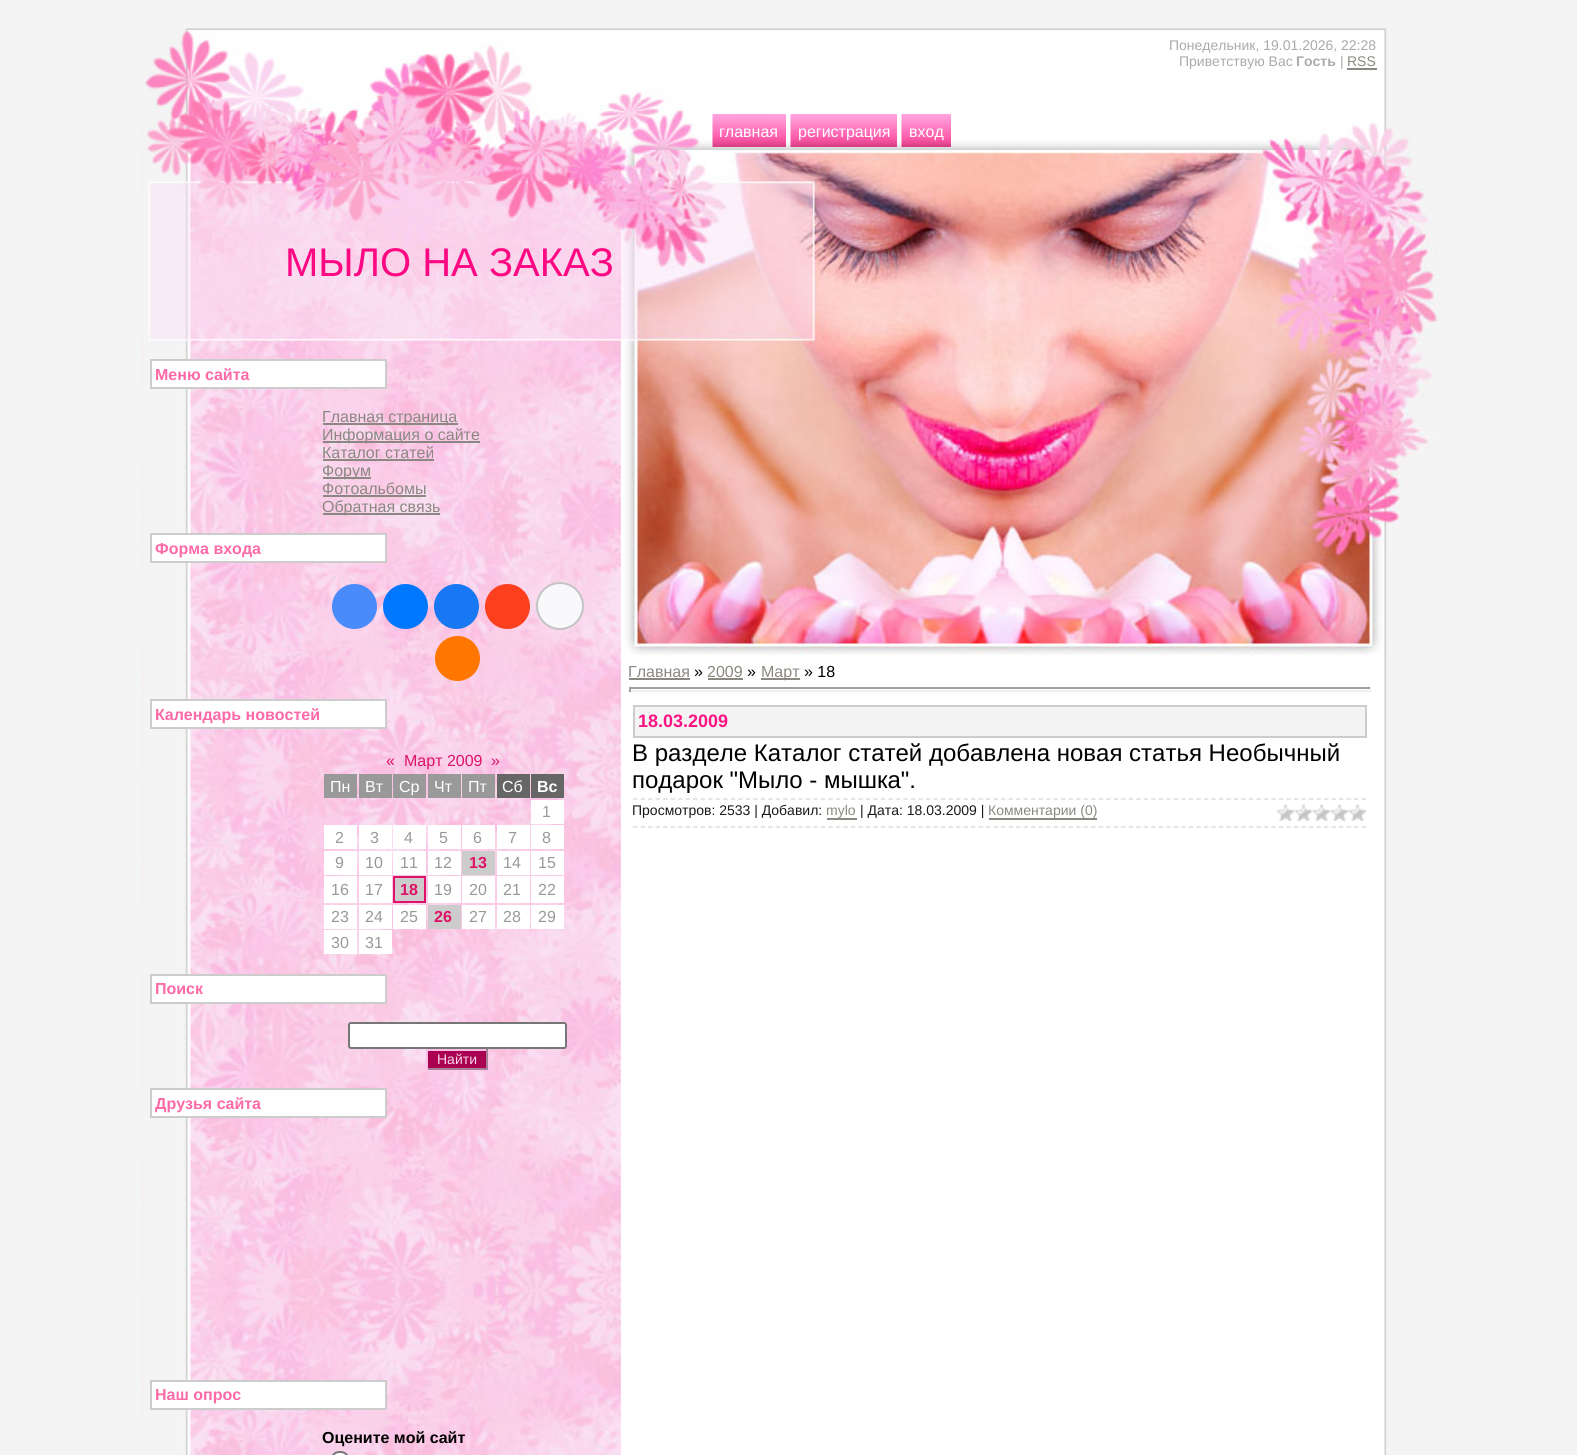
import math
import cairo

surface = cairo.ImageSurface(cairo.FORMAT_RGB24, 1577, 1455)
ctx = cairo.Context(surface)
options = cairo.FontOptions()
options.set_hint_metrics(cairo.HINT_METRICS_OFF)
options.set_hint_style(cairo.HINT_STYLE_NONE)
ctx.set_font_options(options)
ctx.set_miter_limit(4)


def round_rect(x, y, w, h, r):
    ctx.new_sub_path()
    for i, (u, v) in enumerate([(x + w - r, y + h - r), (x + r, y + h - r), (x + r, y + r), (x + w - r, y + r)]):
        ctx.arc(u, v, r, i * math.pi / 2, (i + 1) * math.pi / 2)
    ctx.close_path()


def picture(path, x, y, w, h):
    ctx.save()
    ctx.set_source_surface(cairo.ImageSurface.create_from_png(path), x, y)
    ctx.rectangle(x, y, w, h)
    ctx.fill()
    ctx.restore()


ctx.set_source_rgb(0.957, 0.957, 0.957)
ctx.paint()
picture("img1.png", 142, 0, 479, 1455)
picture("img2.png", 142, 0, 1245, 30)
picture("img3.png", 142, 30, 1295, 81)
ctx.select_font_face("Liberation Sans")
ctx.set_font_size(14)
ctx.set_source_rgb(0.667, 0.667, 0.667)
ctx.move_to(1169, 50)
ctx.show_text("Понедельник, 19.01.2026, 22:28")
ctx.move_to(1179, 66)
ctx.show_text("Приветствую Вас")
ctx.select_font_face("Liberation Sans", cairo.FONT_SLANT_NORMAL, cairo.FONT_WEIGHT_BOLD)
ctx.move_to(1296, 66)
ctx.show_text("Гость")
ctx.select_font_face("Liberation Sans")
ctx.move_to(1340, 66)
ctx.show_text("|")
ctx.set_source_rgb(0.545, 0.533, 0.506)
ctx.move_to(1347, 66)
ctx.show_text("RSS")
ctx.rectangle(1347, 68, 30, 2)
ctx.fill()
picture("img4.png", 142, 111, 1295, 39)
picture("img5.png", 712, 114, 74, 33)
picture("img6.png", 790, 114, 107, 33)
picture("img7.png", 901, 114, 50, 33)
ctx.set_font_size(16)
ctx.set_source_rgb(1, 1, 1)
ctx.move_to(719, 137)
ctx.show_text("главная")
ctx.move_to(798, 137)
ctx.show_text("регистрация")
ctx.move_to(909, 137)
ctx.show_text("вход")
picture("img8.png", 621, 655, 766, 800)
picture("img9.png", 142, 150, 479, 191)
ctx.set_font_size(40)
ctx.set_source_rgb(0.992, 0.031, 0.514)
ctx.move_to(285, 276)
ctx.show_text("МЫЛО НА ЗАКАЗ")
ctx.set_source_rgb(1, 1, 1)
ctx.rectangle(151, 360, 235, 28)
ctx.fill_preserve()
ctx.set_source_rgb(0.8, 0.8, 0.8)
ctx.stroke()
ctx.select_font_face("Liberation Sans", cairo.FONT_SLANT_NORMAL, cairo.FONT_WEIGHT_BOLD)
ctx.set_font_size(16)
ctx.set_source_rgb(0.996, 0.412, 0.655)
ctx.move_to(155, 380)
ctx.show_text("Меню сайта")
ctx.set_source_rgb(0.545, 0.533, 0.506)
ctx.rectangle(323, 423, 135, 2)
ctx.fill()
ctx.select_font_face("Liberation Sans")
ctx.move_to(322, 422)
ctx.show_text("Главная страница")
ctx.rectangle(323, 441, 157, 2)
ctx.fill()
ctx.move_to(322, 440)
ctx.show_text("Информация о сайте")
ctx.move_to(322, 458)
ctx.show_text("Каталог статей")
ctx.rectangle(323, 459, 111, 2)
ctx.fill()
ctx.rectangle(323, 477, 48, 2)
ctx.fill()
ctx.move_to(322, 476)
ctx.show_text("Форум")
ctx.move_to(322, 494)
ctx.show_text("Фотоальбомы")
ctx.rectangle(323, 495, 103, 2)
ctx.fill()
ctx.rectangle(323, 513, 117, 2)
ctx.fill()
ctx.move_to(322, 512)
ctx.show_text("Обратная связь")
ctx.set_source_rgb(1, 1, 1)
ctx.rectangle(151, 534, 235, 28)
ctx.fill_preserve()
ctx.set_source_rgb(0.8, 0.8, 0.8)
ctx.stroke()
ctx.select_font_face("Liberation Sans", cairo.FONT_SLANT_NORMAL, cairo.FONT_WEIGHT_BOLD)
ctx.set_source_rgb(0.996, 0.412, 0.655)
ctx.move_to(155, 554)
ctx.show_text("Форма входа")
ctx.set_source_rgb(0.286, 0.545, 0.98)
ctx.new_path()
ctx.arc(354.5, 606.5, 22.5, 0, 2 * math.pi)
ctx.fill()
ctx.set_source_rgb(0, 0.467, 1)
ctx.arc(405.5, 606.5, 22.5, 0, 2 * math.pi)
ctx.fill()
ctx.set_source_rgb(0.094, 0.467, 0.949)
ctx.arc(456.5, 606.5, 22.5, 0, 2 * math.pi)
ctx.fill()
ctx.set_source_rgb(0.988, 0.247, 0.114)
ctx.arc(507.5, 606.5, 22.5, 0, 2 * math.pi)
ctx.fill()
ctx.set_source_rgb(0.973, 0.973, 0.988)
ctx.arc(560, 606, 23, 0, 2 * math.pi)
ctx.fill_preserve()
ctx.set_source_rgb(0.769, 0.769, 0.769)
ctx.stroke()
ctx.set_source_rgb(1, 0.467, 0)
ctx.arc(457.5, 658.5, 22.5, 0, 2 * math.pi)
ctx.fill()
ctx.set_source_rgb(1, 1, 1)
ctx.rectangle(151, 700, 235, 28)
ctx.fill_preserve()
ctx.set_source_rgb(0.8, 0.8, 0.8)
ctx.stroke()
ctx.set_source_rgb(0.996, 0.412, 0.655)
ctx.move_to(155, 720)
ctx.show_text("Календарь новостей")
ctx.select_font_face("Liberation Sans")
ctx.set_source_rgb(0.867, 0.071, 0.408)
ctx.move_to(386, 766)
ctx.show_text("«")
ctx.move_to(404, 766)
ctx.show_text("Март 2009")
ctx.move_to(491, 766)
ctx.show_text("»")
ctx.set_source_rgb(0.6, 0.6, 0.6)
ctx.rectangle(324, 774, 33, 24)
ctx.fill()
ctx.set_source_rgb(1, 1, 1)
ctx.move_to(330, 792)
ctx.show_text("Пн")
ctx.set_source_rgb(0.6, 0.6, 0.6)
ctx.rectangle(359, 774, 33, 24)
ctx.fill()
ctx.set_source_rgb(1, 1, 1)
ctx.move_to(365, 792)
ctx.show_text("Вт")
ctx.set_source_rgb(0.6, 0.6, 0.6)
ctx.rectangle(393, 774, 33, 24)
ctx.fill()
ctx.set_source_rgb(1, 1, 1)
ctx.move_to(399, 792)
ctx.show_text("Ср")
ctx.set_source_rgb(0.6, 0.6, 0.6)
ctx.rectangle(428, 774, 33, 24)
ctx.fill()
ctx.set_source_rgb(1, 1, 1)
ctx.move_to(434, 792)
ctx.show_text("Чт")
ctx.set_source_rgb(0.6, 0.6, 0.6)
ctx.rectangle(462, 774, 33, 24)
ctx.fill()
ctx.set_source_rgb(1, 1, 1)
ctx.move_to(468, 792)
ctx.show_text("Пт")
ctx.set_source_rgb(0.4, 0.4, 0.4)
ctx.rectangle(497, 774, 33, 24)
ctx.fill()
ctx.set_source_rgb(1, 1, 1)
ctx.move_to(502, 792)
ctx.show_text("Сб")
ctx.set_source_rgb(0.4, 0.4, 0.4)
ctx.rectangle(531, 774, 33, 24)
ctx.fill()
ctx.select_font_face("Liberation Sans", cairo.FONT_SLANT_NORMAL, cairo.FONT_WEIGHT_BOLD)
ctx.set_source_rgb(1, 1, 1)
ctx.move_to(537, 792)
ctx.show_text("Вс")
ctx.rectangle(531, 800, 33, 24)
ctx.fill()
ctx.select_font_face("Liberation Sans")
ctx.set_source_rgb(0.6, 0.6, 0.6)
ctx.move_to(542, 817)
ctx.show_text("1")
ctx.set_source_rgb(1, 1, 1)
ctx.rectangle(324, 825, 33, 24)
ctx.fill()
ctx.set_source_rgb(0.6, 0.6, 0.6)
ctx.move_to(335, 843)
ctx.show_text("2")
ctx.set_source_rgb(1, 1, 1)
ctx.rectangle(359, 825, 33, 24)
ctx.fill()
ctx.set_source_rgb(0.6, 0.6, 0.6)
ctx.move_to(370, 843)
ctx.show_text("3")
ctx.set_source_rgb(1, 1, 1)
ctx.rectangle(393, 825, 33, 24)
ctx.fill()
ctx.set_source_rgb(0.6, 0.6, 0.6)
ctx.move_to(404, 843)
ctx.show_text("4")
ctx.set_source_rgb(1, 1, 1)
ctx.rectangle(428, 825, 33, 24)
ctx.fill()
ctx.set_source_rgb(0.6, 0.6, 0.6)
ctx.move_to(439, 843)
ctx.show_text("5")
ctx.set_source_rgb(1, 1, 1)
ctx.rectangle(462, 825, 33, 24)
ctx.fill()
ctx.set_source_rgb(0.6, 0.6, 0.6)
ctx.move_to(473, 843)
ctx.show_text("6")
ctx.set_source_rgb(1, 1, 1)
ctx.rectangle(497, 825, 33, 24)
ctx.fill()
ctx.set_source_rgb(0.6, 0.6, 0.6)
ctx.move_to(508, 843)
ctx.show_text("7")
ctx.set_source_rgb(1, 1, 1)
ctx.rectangle(531, 825, 33, 24)
ctx.fill()
ctx.set_source_rgb(0.6, 0.6, 0.6)
ctx.move_to(542, 843)
ctx.show_text("8")
ctx.set_source_rgb(1, 1, 1)
ctx.rectangle(324, 851, 33, 24)
ctx.fill()
ctx.set_source_rgb(0.6, 0.6, 0.6)
ctx.move_to(335, 868)
ctx.show_text("9")
ctx.set_source_rgb(1, 1, 1)
ctx.rectangle(359, 851, 33, 24)
ctx.fill()
ctx.set_source_rgb(0.6, 0.6, 0.6)
ctx.move_to(365, 868)
ctx.show_text("10")
ctx.set_source_rgb(1, 1, 1)
ctx.rectangle(393, 851, 33, 24)
ctx.fill()
ctx.set_source_rgb(0.6, 0.6, 0.6)
ctx.move_to(400, 868)
ctx.show_text("11")
ctx.set_source_rgb(1, 1, 1)
ctx.rectangle(428, 851, 33, 24)
ctx.fill()
ctx.set_source_rgb(0.6, 0.6, 0.6)
ctx.move_to(434, 868)
ctx.show_text("12")
ctx.set_source_rgb(0.8, 0.8, 0.8)
ctx.rectangle(462, 851, 33, 24)
ctx.fill()
ctx.select_font_face("Liberation Sans", cairo.FONT_SLANT_NORMAL, cairo.FONT_WEIGHT_BOLD)
ctx.set_source_rgb(0.867, 0.071, 0.408)
ctx.move_to(469, 868)
ctx.show_text("13")
ctx.set_source_rgb(1, 1, 1)
ctx.rectangle(497, 851, 33, 24)
ctx.fill()
ctx.select_font_face("Liberation Sans")
ctx.set_source_rgb(0.6, 0.6, 0.6)
ctx.move_to(503, 868)
ctx.show_text("14")
ctx.set_source_rgb(1, 1, 1)
ctx.rectangle(531, 851, 33, 24)
ctx.fill()
ctx.set_source_rgb(0.6, 0.6, 0.6)
ctx.move_to(538, 868)
ctx.show_text("15")
ctx.set_source_rgb(1, 1, 1)
ctx.rectangle(324, 876, 33, 27)
ctx.fill()
ctx.set_source_rgb(0.6, 0.6, 0.6)
ctx.move_to(331, 895)
ctx.show_text("16")
ctx.set_source_rgb(1, 1, 1)
ctx.rectangle(359, 876, 33, 27)
ctx.fill()
ctx.set_source_rgb(0.6, 0.6, 0.6)
ctx.move_to(365, 895)
ctx.show_text("17")
ctx.set_source_rgb(0.8, 0.8, 0.8)
ctx.rectangle(394, 877, 31, 25)
ctx.fill_preserve()
ctx.set_source_rgb(0.867, 0.071, 0.408)
ctx.stroke()
ctx.select_font_face("Liberation Sans", cairo.FONT_SLANT_NORMAL, cairo.FONT_WEIGHT_BOLD)
ctx.move_to(400, 895)
ctx.show_text("18")
ctx.set_source_rgb(1, 1, 1)
ctx.rectangle(428, 876, 33, 27)
ctx.fill()
ctx.select_font_face("Liberation Sans")
ctx.set_source_rgb(0.6, 0.6, 0.6)
ctx.move_to(434, 895)
ctx.show_text("19")
ctx.set_source_rgb(1, 1, 1)
ctx.rectangle(462, 876, 33, 27)
ctx.fill()
ctx.set_source_rgb(0.6, 0.6, 0.6)
ctx.move_to(469, 895)
ctx.show_text("20")
ctx.set_source_rgb(1, 1, 1)
ctx.rectangle(497, 876, 33, 27)
ctx.fill()
ctx.set_source_rgb(0.6, 0.6, 0.6)
ctx.move_to(503, 895)
ctx.show_text("21")
ctx.set_source_rgb(1, 1, 1)
ctx.rectangle(531, 876, 33, 27)
ctx.fill()
ctx.set_source_rgb(0.6, 0.6, 0.6)
ctx.move_to(538, 895)
ctx.show_text("22")
ctx.set_source_rgb(1, 1, 1)
ctx.rectangle(324, 905, 33, 24)
ctx.fill()
ctx.set_source_rgb(0.6, 0.6, 0.6)
ctx.move_to(331, 922)
ctx.show_text("23")
ctx.set_source_rgb(1, 1, 1)
ctx.rectangle(359, 905, 33, 24)
ctx.fill()
ctx.set_source_rgb(0.6, 0.6, 0.6)
ctx.move_to(365, 922)
ctx.show_text("24")
ctx.set_source_rgb(1, 1, 1)
ctx.rectangle(393, 905, 33, 24)
ctx.fill()
ctx.set_source_rgb(0.6, 0.6, 0.6)
ctx.move_to(400, 922)
ctx.show_text("25")
ctx.set_source_rgb(0.8, 0.8, 0.8)
ctx.rectangle(428, 905, 33, 24)
ctx.fill()
ctx.select_font_face("Liberation Sans", cairo.FONT_SLANT_NORMAL, cairo.FONT_WEIGHT_BOLD)
ctx.set_source_rgb(0.867, 0.071, 0.408)
ctx.move_to(434, 922)
ctx.show_text("26")
ctx.set_source_rgb(1, 1, 1)
ctx.rectangle(462, 905, 33, 24)
ctx.fill()
ctx.select_font_face("Liberation Sans")
ctx.set_source_rgb(0.6, 0.6, 0.6)
ctx.move_to(469, 922)
ctx.show_text("27")
ctx.set_source_rgb(1, 1, 1)
ctx.rectangle(497, 905, 33, 24)
ctx.fill()
ctx.set_source_rgb(0.6, 0.6, 0.6)
ctx.move_to(503, 922)
ctx.show_text("28")
ctx.set_source_rgb(1, 1, 1)
ctx.rectangle(531, 905, 33, 24)
ctx.fill()
ctx.set_source_rgb(0.6, 0.6, 0.6)
ctx.move_to(538, 922)
ctx.show_text("29")
ctx.set_source_rgb(1, 1, 1)
ctx.rectangle(324, 930, 33, 24)
ctx.fill()
ctx.set_source_rgb(0.6, 0.6, 0.6)
ctx.move_to(331, 948)
ctx.show_text("30")
ctx.set_source_rgb(1, 1, 1)
ctx.rectangle(359, 930, 33, 24)
ctx.fill()
ctx.set_source_rgb(0.6, 0.6, 0.6)
ctx.move_to(365, 948)
ctx.show_text("31")
ctx.set_source_rgb(1, 1, 1)
ctx.rectangle(151, 975, 235, 28)
ctx.fill_preserve()
ctx.set_source_rgb(0.8, 0.8, 0.8)
ctx.stroke()
ctx.select_font_face("Liberation Sans", cairo.FONT_SLANT_NORMAL, cairo.FONT_WEIGHT_BOLD)
ctx.set_source_rgb(0.996, 0.412, 0.655)
ctx.move_to(155, 994)
ctx.show_text("Поиск")
ctx.set_source_rgb(1, 1, 1)
round_rect(349, 1023, 217, 25, 2)
ctx.fill_preserve()
ctx.set_source_rgb(0.463, 0.463, 0.463)
ctx.stroke()
ctx.set_source_rgb(0.663, 0, 0.318)
ctx.rectangle(428, 1051, 58, 17)
ctx.fill()
ctx.set_source_rgb(0.984, 0.745, 0.898)
ctx.rectangle(426, 1049, 62, 2)
ctx.fill()
ctx.set_source_rgb(0.655, 0.498, 0.6)
ctx.rectangle(486, 1049, 2, 21)
ctx.fill()
ctx.rectangle(426, 1068, 62, 2)
ctx.fill()
ctx.set_source_rgb(0.984, 0.745, 0.898)
ctx.rectangle(426, 1049, 2, 21)
ctx.fill()
ctx.select_font_face("Liberation Sans")
ctx.set_font_size(14)
ctx.set_source_rgb(0.98, 0.835, 0.925)
ctx.move_to(437, 1064)
ctx.show_text("Найти")
ctx.set_source_rgb(1, 1, 1)
ctx.rectangle(151, 1089, 235, 28)
ctx.fill_preserve()
ctx.set_source_rgb(0.8, 0.8, 0.8)
ctx.stroke()
ctx.select_font_face("Liberation Sans", cairo.FONT_SLANT_NORMAL, cairo.FONT_WEIGHT_BOLD)
ctx.set_font_size(16)
ctx.set_source_rgb(0.996, 0.412, 0.655)
ctx.move_to(155, 1109)
ctx.show_text("Друзья сайта")
ctx.set_source_rgb(1, 1, 1)
ctx.rectangle(151, 1381, 235, 28)
ctx.fill_preserve()
ctx.set_source_rgb(0.8, 0.8, 0.8)
ctx.stroke()
ctx.set_source_rgb(0.996, 0.412, 0.655)
ctx.move_to(155, 1400)
ctx.show_text("Наш опрос")
ctx.set_source_rgb(0, 0, 0)
ctx.move_to(322, 1443)
ctx.show_text("Оцените мой сайт")
ctx.set_source_rgb(1, 1, 1)
round_rect(331, 1452, 18, 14, 8.5)
ctx.fill_preserve()
ctx.set_source_rgb(0.463, 0.463, 0.463)
ctx.stroke()
picture("img10.png", 621, 150, 816, 505)
ctx.select_font_face("Liberation Sans")
ctx.set_source_rgb(0.545, 0.533, 0.506)
ctx.move_to(628, 677)
ctx.show_text("Главная")
ctx.rectangle(629, 678, 61, 2)
ctx.fill()
ctx.set_source_rgb(0, 0, 0)
ctx.move_to(694, 677)
ctx.show_text("»")
ctx.set_source_rgb(0.545, 0.533, 0.506)
ctx.move_to(707, 677)
ctx.show_text("2009")
ctx.rectangle(708, 678, 35, 2)
ctx.fill()
ctx.set_source_rgb(0, 0, 0)
ctx.move_to(747, 677)
ctx.show_text("»")
ctx.set_source_rgb(0.545, 0.533, 0.506)
ctx.rectangle(761, 678, 39, 2)
ctx.fill()
ctx.move_to(761, 677)
ctx.show_text("Март")
ctx.set_source_rgb(0, 0, 0)
ctx.move_to(804, 677)
ctx.show_text("» 18")
ctx.set_source_rgb(0.624, 0.624, 0.624)
ctx.rectangle(629, 687, 742, 2)
ctx.fill()
ctx.set_source_rgb(0.933, 0.933, 0.933)
ctx.rectangle(1370, 687, 1, 5)
ctx.fill()
ctx.rectangle(629, 690, 742, 2)
ctx.fill()
ctx.set_source_rgb(0.624, 0.624, 0.624)
ctx.rectangle(629, 687, 2, 5)
ctx.fill()
ctx.set_source_rgb(0.957, 0.957, 0.957)
ctx.rectangle(634, 706, 732, 31)
ctx.fill_preserve()
ctx.set_source_rgb(0.8, 0.8, 0.8)
ctx.stroke()
ctx.select_font_face("Liberation Sans", cairo.FONT_SLANT_NORMAL, cairo.FONT_WEIGHT_BOLD)
ctx.set_font_size(18)
ctx.set_source_rgb(0.988, 0.082, 0.514)
ctx.move_to(638, 727)
ctx.show_text("18.03.2009")
ctx.select_font_face("Liberation Sans")
ctx.set_font_size(24)
ctx.set_source_rgb(0, 0, 0)
ctx.move_to(632, 761)
ctx.show_text("В разделе Каталог статей добавлена новая статья Необычный")
ctx.move_to(632, 788)
ctx.show_text("подарок \"Мыло - мышка\".")
ctx.new_path()
ctx.move_to(633, 799)
ctx.line_to(1366.5, 799)
ctx.set_source_rgb(0.867, 0.867, 0.867)
ctx.set_line_width(1.5)
ctx.set_dash([4.5, 3.01])
ctx.stroke()
ctx.new_path()
ctx.move_to(633, 827)
ctx.line_to(1366.5, 827)
ctx.stroke()
ctx.set_font_size(14)
ctx.set_source_rgb(0.102, 0.102, 0.102)
ctx.move_to(632, 815)
ctx.show_text("Просмотров: 2533 | Добавил:")
ctx.set_source_rgb(0.545, 0.533, 0.506)
ctx.move_to(826, 815)
ctx.show_text("mylo")
ctx.rectangle(827, 818, 30, 2)
ctx.fill()
ctx.set_source_rgb(0.102, 0.102, 0.102)
ctx.move_to(860, 815)
ctx.show_text("| Дата: 18.03.2009 |")
ctx.set_source_rgb(0.545, 0.533, 0.506)
ctx.move_to(988, 815)
ctx.show_text("Комментарии (0)")
ctx.rectangle(989, 818, 108, 2)
ctx.fill()
picture("img11.png", 1276, 804, 91, 18)
surface.write_to_png("page.png")
